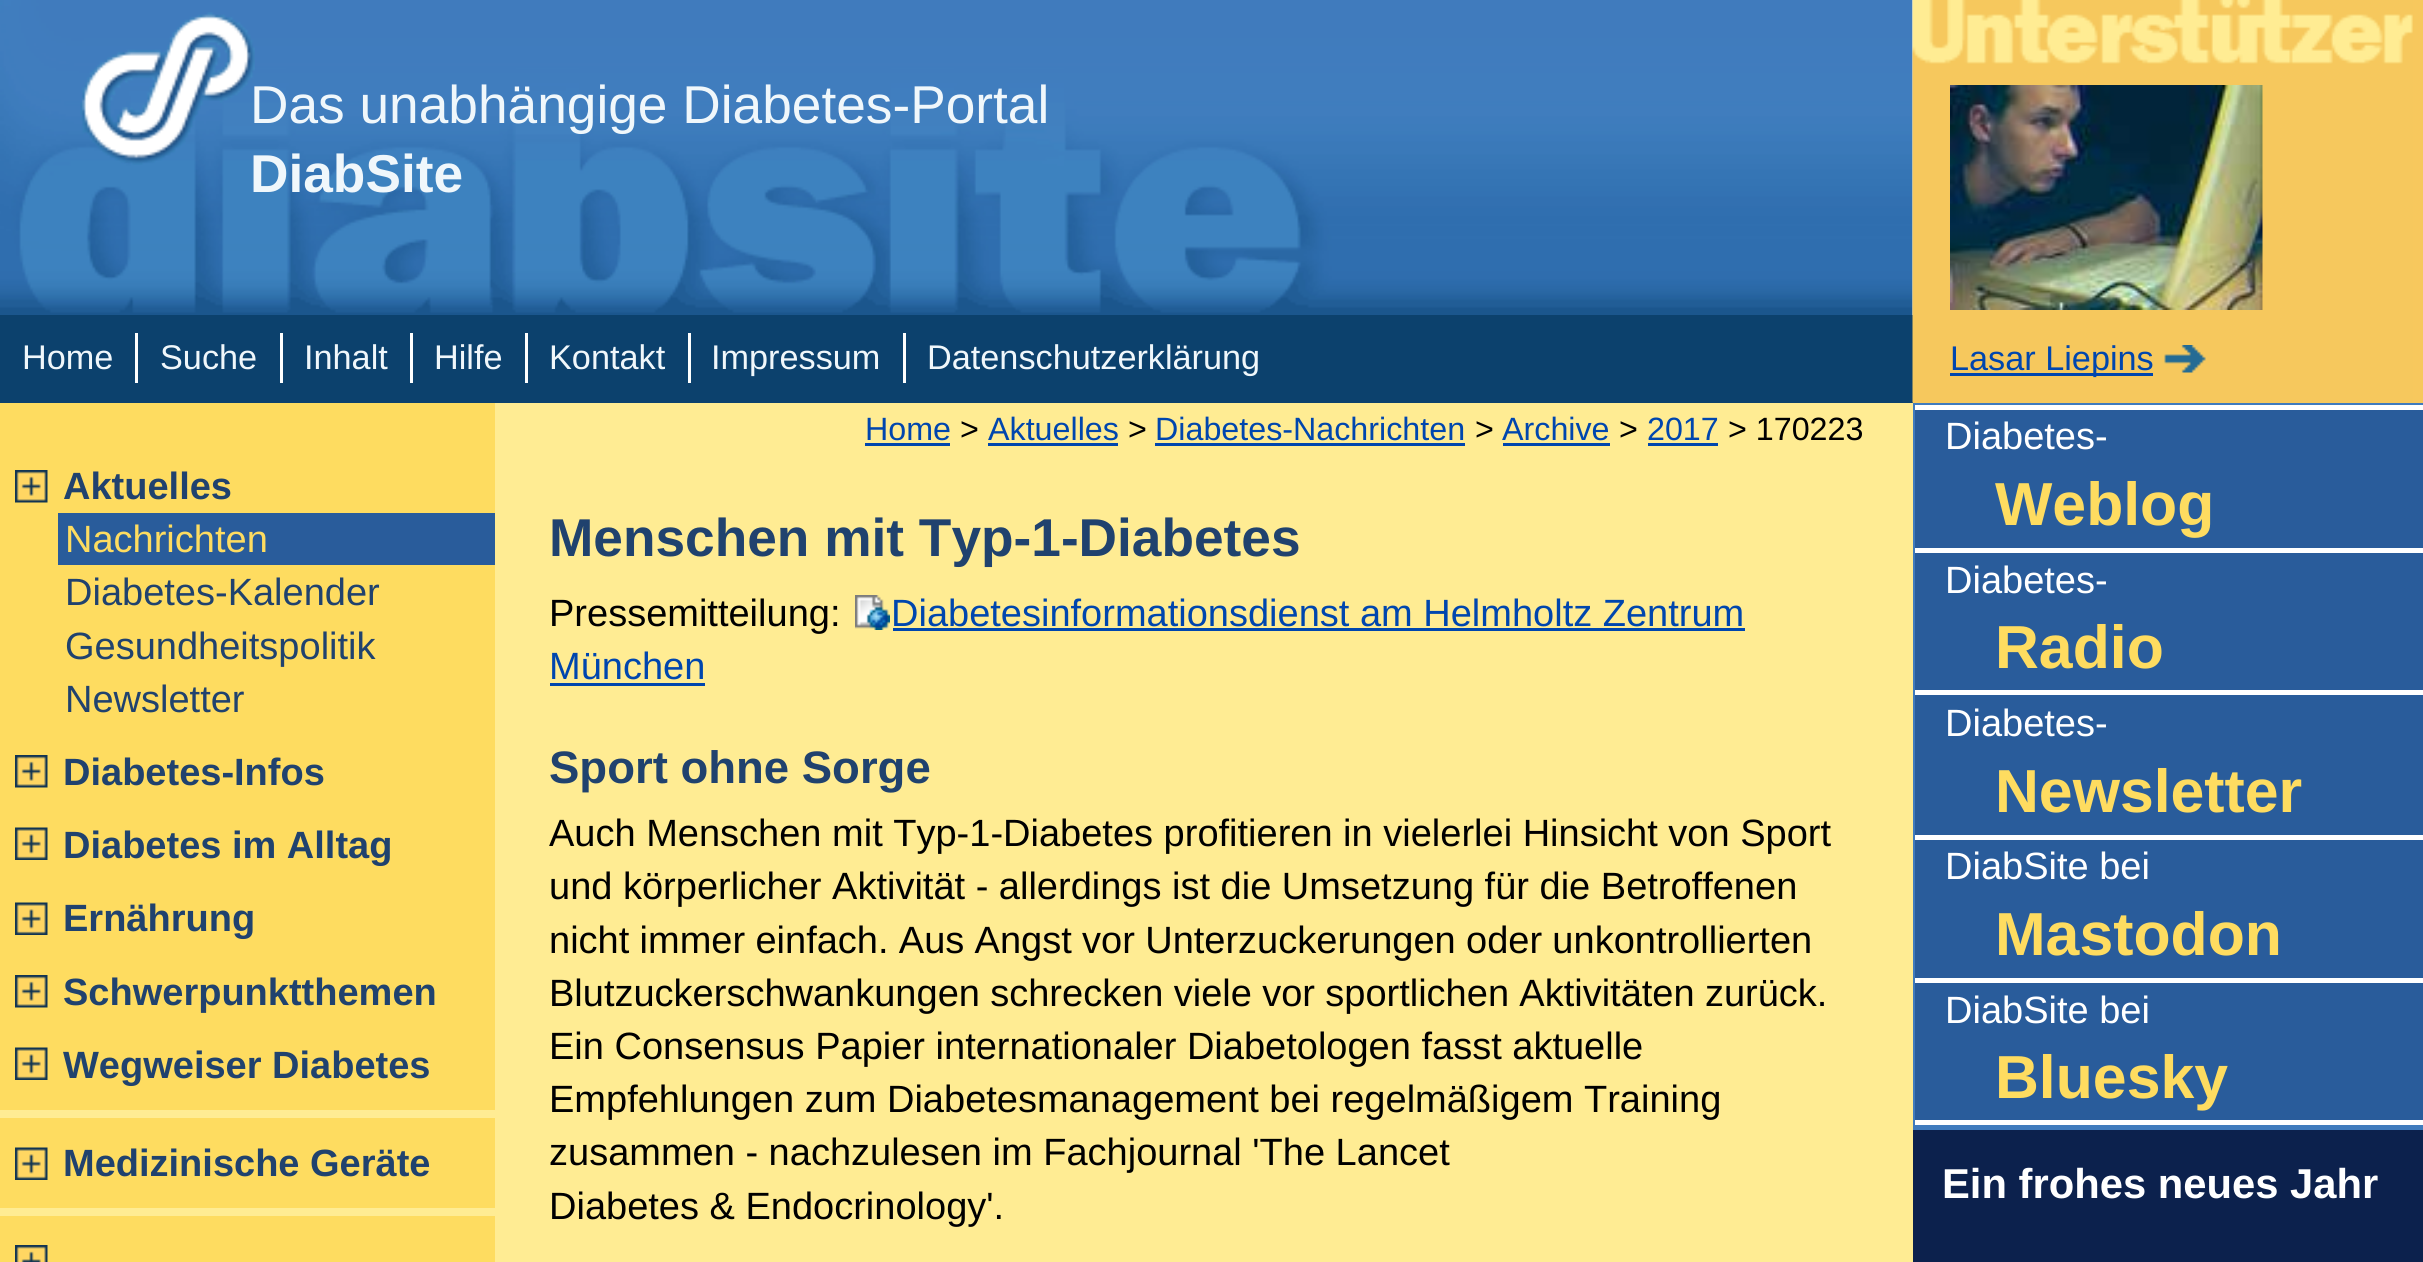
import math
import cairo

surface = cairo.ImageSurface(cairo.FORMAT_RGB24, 2423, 1262)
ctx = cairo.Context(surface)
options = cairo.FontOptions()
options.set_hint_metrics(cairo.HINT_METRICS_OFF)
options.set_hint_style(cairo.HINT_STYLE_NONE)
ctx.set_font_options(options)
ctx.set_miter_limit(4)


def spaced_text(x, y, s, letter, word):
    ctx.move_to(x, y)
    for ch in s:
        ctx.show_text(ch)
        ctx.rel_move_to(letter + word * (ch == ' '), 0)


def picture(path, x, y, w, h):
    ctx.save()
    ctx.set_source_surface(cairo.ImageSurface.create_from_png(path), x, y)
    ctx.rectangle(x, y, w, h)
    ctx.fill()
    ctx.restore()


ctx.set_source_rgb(1, 1, 1)
ctx.paint()
picture("img1.png", 0, 0, 1913, 315)
picture("img2.png", 80, 12, 175, 153)
ctx.select_font_face("Liberation Sans")
ctx.set_font_size(53.25)
ctx.set_source_rgb(0.941, 0.965, 0.984)
ctx.move_to(250, 123)
ctx.show_text("Das unabhängige Diabetes-Portal")
ctx.select_font_face("Liberation Sans", cairo.FONT_SLANT_NORMAL, cairo.FONT_WEIGHT_BOLD)
ctx.move_to(250, 192)
ctx.show_text("DiabSite")
ctx.set_source_rgb(0.047, 0.255, 0.427)
ctx.rectangle(0, 315, 1913, 88)
ctx.fill()
ctx.set_source_rgb(1, 1, 1)
ctx.rectangle(135, 333, 3, 50)
ctx.fill()
ctx.select_font_face("Liberation Sans")
ctx.set_font_size(34.25)
ctx.set_source_rgb(0.941, 0.965, 0.984)
ctx.move_to(22, 369)
ctx.show_text("Home")
ctx.set_source_rgb(1, 1, 1)
ctx.rectangle(280, 333, 3, 50)
ctx.fill()
ctx.set_source_rgb(0.941, 0.965, 0.984)
ctx.move_to(160, 369)
ctx.show_text("Suche")
ctx.set_source_rgb(1, 1, 1)
ctx.rectangle(410, 333, 3, 50)
ctx.fill()
ctx.set_source_rgb(0.941, 0.965, 0.984)
ctx.move_to(304, 369)
ctx.show_text("Inhalt")
ctx.set_source_rgb(1, 1, 1)
ctx.rectangle(525, 333, 3, 50)
ctx.fill()
ctx.set_source_rgb(0.941, 0.965, 0.984)
ctx.move_to(434, 369)
ctx.show_text("Hilfe")
ctx.set_source_rgb(1, 1, 1)
ctx.rectangle(688, 333, 3, 50)
ctx.fill()
ctx.set_source_rgb(0.941, 0.965, 0.984)
ctx.move_to(549, 369)
ctx.show_text("Kontakt")
ctx.set_source_rgb(1, 1, 1)
ctx.rectangle(903, 333, 3, 50)
ctx.fill()
ctx.set_source_rgb(0.941, 0.965, 0.984)
ctx.move_to(711, 369)
ctx.show_text("Impressum")
ctx.move_to(927, 369)
ctx.show_text("Datenschutzerklärung")
ctx.set_source_rgb(0.251, 0.482, 0.741)
ctx.rectangle(1913, 403, 510, 727)
ctx.fill()
ctx.set_source_rgb(0.965, 0.784, 0.365)
ctx.rectangle(1913, 0, 510, 403)
ctx.fill()
picture("img3.png", 1912, 0, 501, 403)
picture("img4.png", 1950, 85, 313, 225)
ctx.set_source_rgb(0, 0.275, 0.682)
ctx.rectangle(1950, 373, 203, 3)
ctx.fill()
ctx.move_to(1950, 370)
ctx.show_text("Lasar Liepins")
picture("img5.png", 2164, 345, 42, 28)
ctx.set_source_rgb(1, 1, 1)
ctx.rectangle(1915, 405, 508, 5)
ctx.fill()
ctx.set_source_rgb(0.161, 0.361, 0.608)
ctx.rectangle(1915, 410, 508, 138)
ctx.fill()
ctx.set_source_rgb(1, 1, 1)
ctx.rectangle(1915, 548, 508, 5)
ctx.fill()
ctx.set_font_size(38)
ctx.move_to(1945, 449)
ctx.show_text("Diabetes-")
ctx.select_font_face("Liberation Sans", cairo.FONT_SLANT_NORMAL, cairo.FONT_WEIGHT_BOLD)
ctx.set_font_size(60.75)
ctx.set_source_rgb(0.996, 0.863, 0.376)
ctx.move_to(1995, 525)
ctx.show_text("Weblog")
ctx.set_source_rgb(0.161, 0.361, 0.608)
ctx.rectangle(1915, 553, 508, 137)
ctx.fill()
ctx.set_source_rgb(1, 1, 1)
ctx.rectangle(1915, 690, 508, 5)
ctx.fill()
ctx.select_font_face("Liberation Sans")
ctx.set_font_size(38)
ctx.move_to(1945, 593)
ctx.show_text("Diabetes-")
ctx.select_font_face("Liberation Sans", cairo.FONT_SLANT_NORMAL, cairo.FONT_WEIGHT_BOLD)
ctx.set_font_size(60.75)
ctx.set_source_rgb(0.996, 0.863, 0.376)
ctx.move_to(1995, 668)
ctx.show_text("Radio")
ctx.set_source_rgb(0.161, 0.361, 0.608)
ctx.rectangle(1915, 695, 508, 140)
ctx.fill()
ctx.set_source_rgb(1, 1, 1)
ctx.rectangle(1915, 835, 508, 5)
ctx.fill()
ctx.select_font_face("Liberation Sans")
ctx.set_font_size(38)
ctx.move_to(1945, 736)
ctx.show_text("Diabetes-")
ctx.select_font_face("Liberation Sans", cairo.FONT_SLANT_NORMAL, cairo.FONT_WEIGHT_BOLD)
ctx.set_font_size(60.75)
ctx.set_source_rgb(0.996, 0.863, 0.376)
ctx.move_to(1995, 812)
ctx.show_text("Newsletter")
ctx.set_source_rgb(0.161, 0.361, 0.608)
ctx.rectangle(1915, 840, 508, 138)
ctx.fill()
ctx.set_source_rgb(1, 1, 1)
ctx.rectangle(1915, 978, 508, 5)
ctx.fill()
ctx.select_font_face("Liberation Sans")
ctx.set_font_size(38)
ctx.move_to(1945, 879)
ctx.show_text("DiabSite bei")
ctx.select_font_face("Liberation Sans", cairo.FONT_SLANT_NORMAL, cairo.FONT_WEIGHT_BOLD)
ctx.set_font_size(60.75)
ctx.set_source_rgb(0.996, 0.863, 0.376)
ctx.move_to(1995, 955)
ctx.show_text("Mastodon")
ctx.set_source_rgb(0.161, 0.361, 0.608)
ctx.rectangle(1915, 983, 508, 137)
ctx.fill()
ctx.set_source_rgb(1, 1, 1)
ctx.rectangle(1915, 1120, 508, 5)
ctx.fill()
ctx.select_font_face("Liberation Sans")
ctx.set_font_size(38)
ctx.move_to(1945, 1023)
ctx.show_text("DiabSite bei")
ctx.select_font_face("Liberation Sans", cairo.FONT_SLANT_NORMAL, cairo.FONT_WEIGHT_BOLD)
ctx.set_font_size(60.75)
ctx.set_source_rgb(0.996, 0.863, 0.376)
ctx.move_to(1995, 1098)
ctx.show_text("Bluesky")
ctx.set_source_rgb(0.047, 0.129, 0.302)
ctx.rectangle(1913, 1130, 510, 132)
ctx.fill()
ctx.set_font_size(41.75)
ctx.set_source_rgb(1, 1, 1)
ctx.move_to(1942, 1198)
ctx.show_text("Ein frohes neues Jahr")
ctx.set_source_rgb(0.996, 0.863, 0.376)
ctx.rectangle(0, 403, 495, 859)
ctx.fill()
picture("img6.png", 15, 470, 33, 33)
ctx.set_font_size(38)
ctx.set_source_rgb(0.125, 0.259, 0.431)
ctx.move_to(63, 499)
ctx.show_text("Aktuelles")
ctx.set_source_rgb(0.161, 0.361, 0.608)
ctx.rectangle(58, 513, 437, 52)
ctx.fill()
ctx.select_font_face("Liberation Sans")
ctx.set_source_rgb(0.996, 0.863, 0.376)
ctx.move_to(65, 552)
ctx.show_text("Nachrichten")
ctx.set_source_rgb(0.125, 0.259, 0.431)
ctx.move_to(65, 605)
ctx.show_text("Diabetes-Kalender")
ctx.move_to(65, 659)
ctx.show_text("Gesundheitspolitik")
ctx.move_to(65, 712)
ctx.show_text("Newsletter")
picture("img6.png", 15, 755, 33, 33)
ctx.select_font_face("Liberation Sans", cairo.FONT_SLANT_NORMAL, cairo.FONT_WEIGHT_BOLD)
ctx.move_to(63, 785)
ctx.show_text("Diabetes-Infos")
picture("img7.png", 15, 827, 33, 33)
ctx.move_to(63, 858)
ctx.show_text("Diabetes im Alltag")
picture("img7.png", 15, 902, 33, 33)
ctx.move_to(63, 931)
ctx.show_text("Ernährung")
picture("img6.png", 15, 975, 33, 33)
ctx.move_to(63, 1005)
ctx.show_text("Schwerpunktthemen")
picture("img7.png", 15, 1047, 33, 33)
ctx.move_to(63, 1078)
ctx.show_text("Wegweiser Diabetes")
ctx.set_source_rgb(1, 0.925, 0.576)
ctx.rectangle(0, 1110, 495, 8)
ctx.fill()
picture("img8.png", 15, 1147, 33, 33)
ctx.set_source_rgb(0.125, 0.259, 0.431)
ctx.move_to(63, 1176)
ctx.show_text("Medizinische Geräte")
ctx.set_source_rgb(1, 0.925, 0.576)
ctx.rectangle(0, 1208, 495, 8)
ctx.fill()
picture("img9.png", 15, 1245, 33, 17)
ctx.rectangle(495, 403, 1418, 859)
ctx.fill()
ctx.select_font_face("Liberation Sans")
ctx.set_font_size(32.25)
ctx.set_source_rgb(0, 0.275, 0.682)
ctx.move_to(865, 440)
ctx.show_text("Home")
ctx.rectangle(865, 443, 85, 3)
ctx.fill()
ctx.set_source_rgb(0, 0, 0)
ctx.move_to(960, 440)
ctx.show_text(">")
ctx.set_source_rgb(0, 0.275, 0.682)
ctx.move_to(988, 440)
ctx.show_text("Aktuelles")
ctx.rectangle(988, 443, 130, 3)
ctx.fill()
ctx.set_source_rgb(0, 0, 0)
ctx.move_to(1128, 440)
ctx.show_text(">")
ctx.set_source_rgb(0, 0.275, 0.682)
ctx.move_to(1155, 440)
ctx.show_text("Diabetes-Nachrichten")
ctx.rectangle(1155, 443, 310, 3)
ctx.fill()
ctx.set_source_rgb(0, 0, 0)
ctx.move_to(1475, 440)
ctx.show_text(">")
ctx.set_source_rgb(0, 0.275, 0.682)
ctx.move_to(1502, 440)
ctx.show_text("Archive")
ctx.rectangle(1503, 443, 107, 3)
ctx.fill()
ctx.set_source_rgb(0, 0, 0)
ctx.move_to(1619, 440)
ctx.show_text(">")
ctx.set_source_rgb(0, 0.275, 0.682)
ctx.move_to(1647, 440)
ctx.show_text("2017")
ctx.rectangle(1648, 443, 70, 3)
ctx.fill()
ctx.set_source_rgb(0, 0, 0)
ctx.move_to(1728, 440)
ctx.show_text("> 170223")
ctx.select_font_face("Liberation Sans", cairo.FONT_SLANT_NORMAL, cairo.FONT_WEIGHT_BOLD)
ctx.set_font_size(53.25)
ctx.set_source_rgb(0.125, 0.259, 0.431)
ctx.move_to(549, 556)
ctx.show_text("Menschen mit Typ-1-Diabetes")
ctx.select_font_face("Liberation Sans")
ctx.set_font_size(38)
ctx.set_source_rgb(0, 0, 0)
ctx.move_to(549, 626)
ctx.show_text("Pressemitteilung:")
picture("img10.png", 855, 595, 35, 35)
ctx.set_source_rgb(0, 0.275, 0.682)
ctx.move_to(891, 626)
ctx.show_text("Diabetesinformationsdienst am Helmholtz Zentrum")
ctx.rectangle(893, 628, 852, 3)
ctx.fill()
ctx.move_to(549, 679)
ctx.show_text("München")
ctx.rectangle(550, 683, 155, 3)
ctx.fill()
ctx.select_font_face("Liberation Sans", cairo.FONT_SLANT_NORMAL, cairo.FONT_WEIGHT_BOLD)
ctx.set_font_size(45.5)
ctx.set_source_rgb(0.125, 0.259, 0.431)
ctx.move_to(549, 783)
ctx.show_text("Sport ohne Sorge")
ctx.select_font_face("Liberation Sans")
ctx.set_font_size(38)
ctx.set_source_rgb(0, 0, 0)
ctx.move_to(549, 846)
ctx.show_text("Auch Menschen mit Typ-1-Diabetes profitieren in vielerlei Hinsicht von Sport")
ctx.move_to(549, 899)
ctx.show_text("und körperlicher Aktivität - allerdings ist die Umsetzung für die Betroffenen")
spaced_text(549, 953, "nicht immer einfach. Aus Angst vor Unterzuckerungen oder unkontrollierten", 0, -0.25)
spaced_text(549, 1006, "Blutzuckerschwankungen schrecken viele vor sportlichen Aktivitäten zurück.", 0, -0.25)
ctx.move_to(549, 1059)
ctx.show_text("Ein Consensus Papier internationaler Diabetologen fasst aktuelle")
ctx.move_to(549, 1112)
ctx.show_text("Empfehlungen zum Diabetesmanagement bei regelmäßigem Training")
ctx.move_to(549, 1165)
ctx.show_text("zusammen - nachzulesen im Fachjournal 'The Lancet")
ctx.move_to(549, 1219)
ctx.show_text("Diabetes & Endocrinology'.")
surface.write_to_png("page.png")
